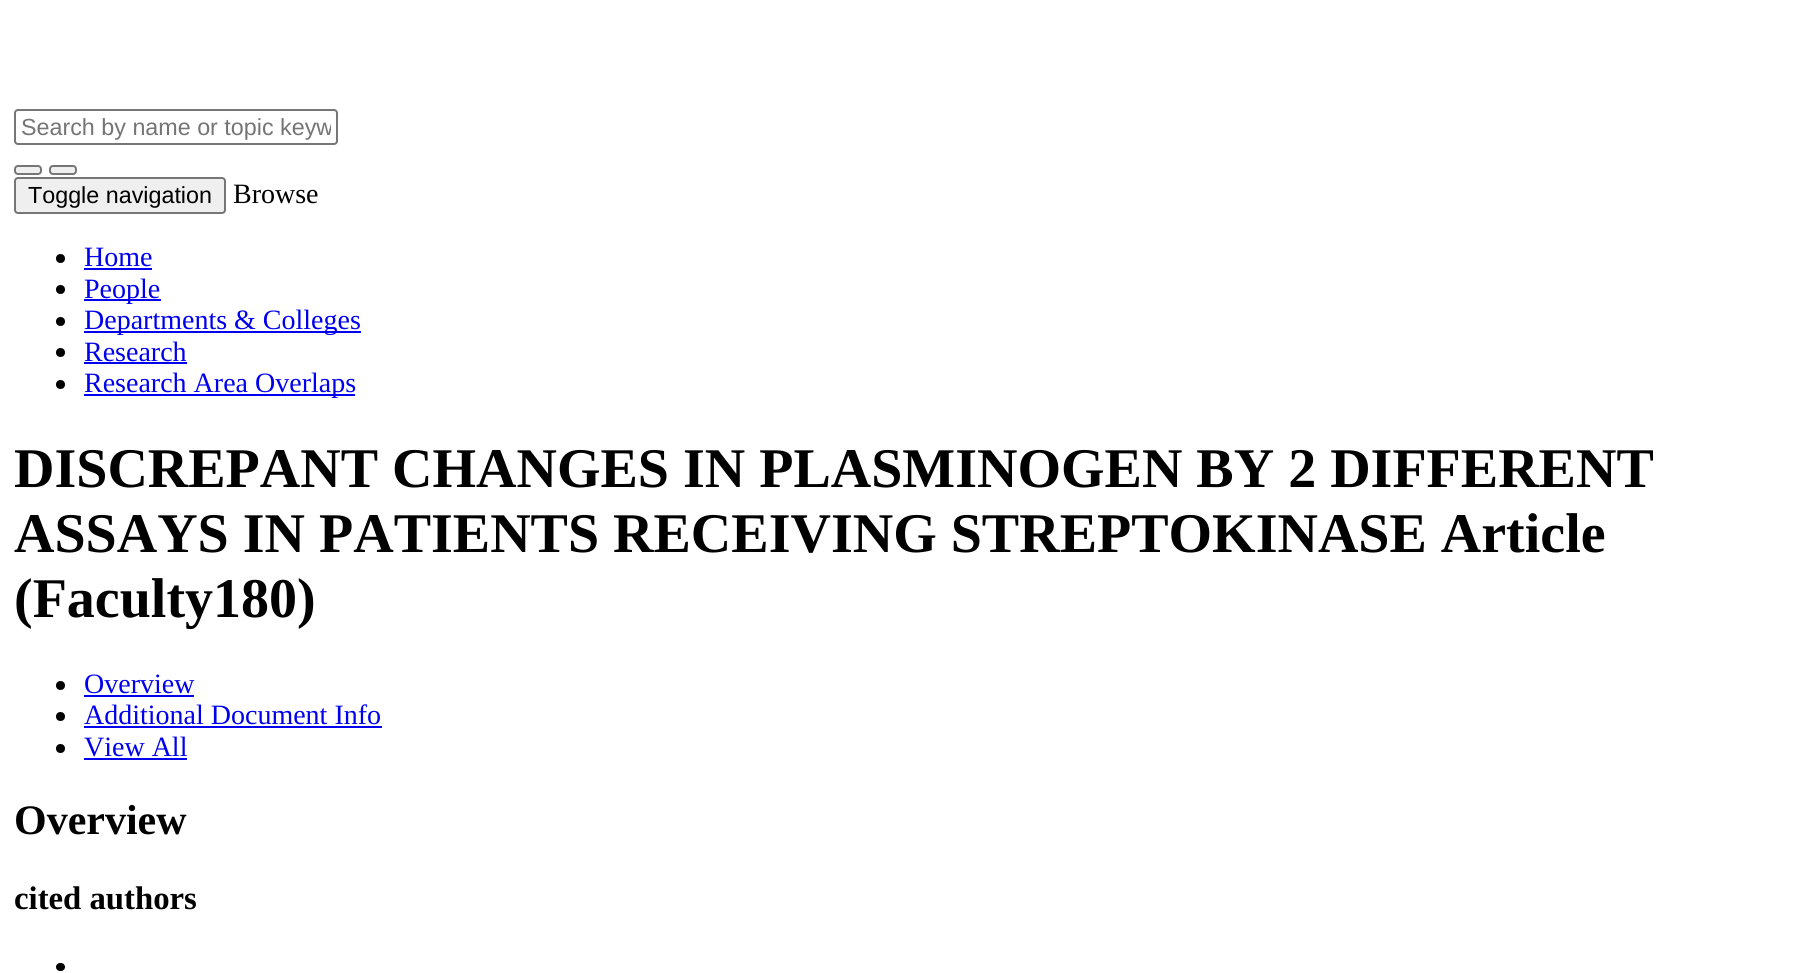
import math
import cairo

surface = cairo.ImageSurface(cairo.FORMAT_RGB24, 1796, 973)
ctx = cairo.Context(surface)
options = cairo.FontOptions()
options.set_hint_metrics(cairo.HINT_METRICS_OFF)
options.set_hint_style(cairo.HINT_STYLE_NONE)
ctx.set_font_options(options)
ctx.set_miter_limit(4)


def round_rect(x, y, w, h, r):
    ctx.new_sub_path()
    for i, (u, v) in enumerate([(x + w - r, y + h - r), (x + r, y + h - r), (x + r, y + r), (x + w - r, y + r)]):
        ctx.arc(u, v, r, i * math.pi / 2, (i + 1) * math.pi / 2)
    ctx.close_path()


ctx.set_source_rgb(1, 1, 1)
ctx.paint()
round_rect(15, 110, 322, 34, 3)
ctx.set_source_rgb(0.463, 0.463, 0.463)
ctx.stroke()
ctx.save()
ctx.rectangle(21, 114, 310, 26)
ctx.clip()
ctx.select_font_face("Liberation Sans")
ctx.set_font_size(23.3)
ctx.set_source_rgb(0.459, 0.459, 0.459)
ctx.move_to(21, 135)
ctx.show_text("Search by name or topic keyw")
ctx.restore()
ctx.set_source_rgb(0.937, 0.937, 0.937)
round_rect(15, 166, 26, 8, 3)
ctx.fill_preserve()
ctx.set_source_rgb(0.463, 0.463, 0.463)
ctx.stroke()
ctx.set_source_rgb(0.937, 0.937, 0.937)
round_rect(50, 166, 26, 8, 3)
ctx.fill_preserve()
ctx.set_source_rgb(0.463, 0.463, 0.463)
ctx.stroke()
ctx.set_source_rgb(0.937, 0.937, 0.937)
round_rect(15, 178, 210, 35, 3)
ctx.fill_preserve()
ctx.set_source_rgb(0.463, 0.463, 0.463)
ctx.stroke()
ctx.select_font_face("Liberation Sans")
ctx.set_font_size(23.3)
ctx.set_source_rgb(0, 0, 0)
ctx.move_to(28, 203)
ctx.show_text("Toggle navigation")
ctx.select_font_face("Liberation Serif")
ctx.set_font_size(28)
ctx.move_to(233, 203)
ctx.show_text("Browse")
ctx.new_path()
ctx.arc(60.5, 258.5, 4.5, 0, 2 * math.pi)
ctx.fill()
ctx.set_source_rgb(0, 0, 0.933)
ctx.move_to(84, 266)
ctx.show_text("Home")
ctx.rectangle(84, 268, 68, 2)
ctx.fill()
ctx.set_source_rgb(0, 0, 0)
ctx.arc(60.5, 289.5, 4.5, 0, 2 * math.pi)
ctx.fill()
ctx.set_source_rgb(0, 0, 0.933)
ctx.rectangle(84, 299, 77, 2)
ctx.fill()
ctx.move_to(84, 298)
ctx.show_text("People")
ctx.set_source_rgb(0, 0, 0)
ctx.new_path()
ctx.arc(60.5, 321.5, 4.5, 0, 2 * math.pi)
ctx.fill()
ctx.set_source_rgb(0, 0, 0.933)
ctx.rectangle(84, 331, 277, 2)
ctx.fill()
ctx.move_to(84, 329)
ctx.show_text("Departments & Colleges")
ctx.set_source_rgb(0, 0, 0)
ctx.new_path()
ctx.arc(60.5, 352.5, 4.5, 0, 2 * math.pi)
ctx.fill()
ctx.set_source_rgb(0, 0, 0.933)
ctx.move_to(84, 361)
ctx.show_text("Research")
ctx.rectangle(84, 362, 103, 2)
ctx.fill()
ctx.set_source_rgb(0, 0, 0)
ctx.arc(60.5, 384.5, 4.5, 0, 2 * math.pi)
ctx.fill()
ctx.set_source_rgb(0, 0, 0.933)
ctx.rectangle(84, 394, 271, 2)
ctx.fill()
ctx.move_to(84, 392)
ctx.show_text("Research Area Overlaps")
ctx.select_font_face("Liberation Serif", cairo.FONT_SLANT_NORMAL, cairo.FONT_WEIGHT_BOLD)
ctx.set_font_size(56)
ctx.set_source_rgb(0, 0, 0)
ctx.move_to(14, 487)
ctx.show_text("DISCREPANT CHANGES IN PLASMINOGEN BY 2 DIFFERENT")
ctx.move_to(14, 552)
ctx.show_text("ASSAYS IN PATIENTS RECEIVING STREPTOKINASE Article")
ctx.move_to(14, 617)
ctx.show_text("(Faculty180)")
ctx.new_path()
ctx.arc(60.5, 685.5, 4.5, 0, 2 * math.pi)
ctx.fill()
ctx.select_font_face("Liberation Serif")
ctx.set_font_size(28)
ctx.set_source_rgb(0, 0, 0.933)
ctx.move_to(84, 693)
ctx.show_text("Overview")
ctx.rectangle(84, 695, 110, 2)
ctx.fill()
ctx.set_source_rgb(0, 0, 0)
ctx.arc(60.5, 716.5, 4.5, 0, 2 * math.pi)
ctx.fill()
ctx.set_source_rgb(0, 0, 0.933)
ctx.move_to(84, 724)
ctx.show_text("Additional Document Info")
ctx.rectangle(84, 726, 298, 2)
ctx.fill()
ctx.set_source_rgb(0, 0, 0)
ctx.arc(60.5, 748.5, 4.5, 0, 2 * math.pi)
ctx.fill()
ctx.set_source_rgb(0, 0, 0.933)
ctx.move_to(84, 756)
ctx.show_text("View All")
ctx.rectangle(84, 758, 103, 2)
ctx.fill()
ctx.select_font_face("Liberation Serif", cairo.FONT_SLANT_NORMAL, cairo.FONT_WEIGHT_BOLD)
ctx.set_font_size(42)
ctx.set_source_rgb(0, 0, 0)
ctx.move_to(14, 834)
ctx.show_text("Overview")
ctx.set_font_size(32.75)
ctx.move_to(14, 909)
ctx.show_text("cited authors")
round_rect(56, 963, 9, 8, 4)
ctx.fill()
surface.write_to_png("page.png")
